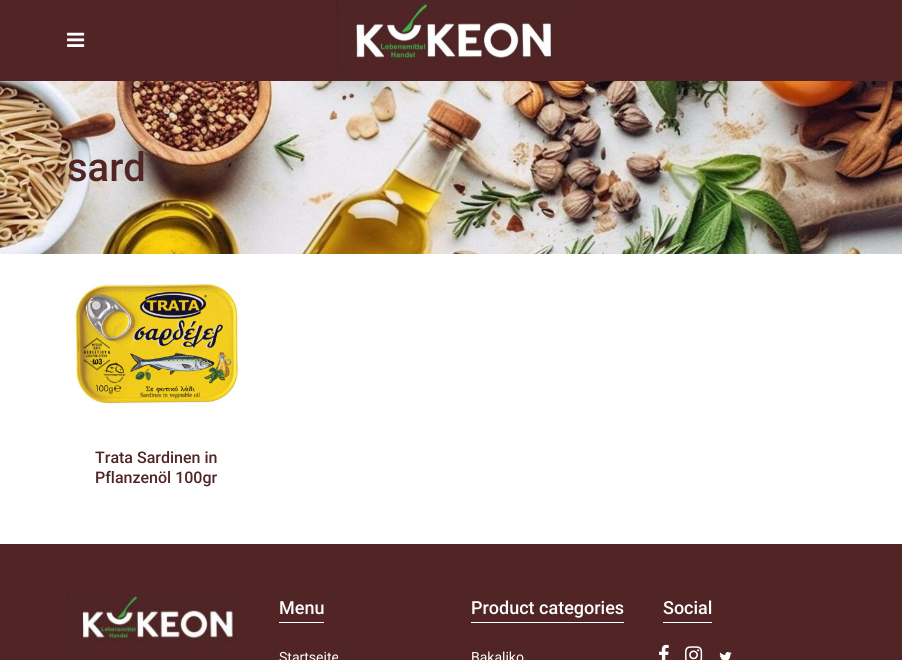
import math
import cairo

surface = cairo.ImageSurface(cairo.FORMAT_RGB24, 902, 660)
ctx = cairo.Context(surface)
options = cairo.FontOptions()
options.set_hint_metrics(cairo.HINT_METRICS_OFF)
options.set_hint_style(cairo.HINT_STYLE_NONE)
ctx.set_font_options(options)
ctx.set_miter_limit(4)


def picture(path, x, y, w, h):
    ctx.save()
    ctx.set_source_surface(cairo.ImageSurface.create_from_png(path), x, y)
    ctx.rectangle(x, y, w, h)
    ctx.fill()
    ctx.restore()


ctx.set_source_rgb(1, 1, 1)
ctx.paint()
ctx.set_source_rgb(0.318, 0.145, 0.149)
ctx.rectangle(0, 0, 902, 81)
ctx.fill()
picture("img1.png", 67, 32, 18, 15)
picture("img2.png", 336, 1, 230, 70)
picture("img3.png", 0, 81, 902, 173)
ctx.select_font_face("Roboto Medium")
ctx.set_font_size(40)
ctx.move_to(67, 181)
ctx.show_text("sard")
picture("img4.png", 72, 283, 167, 124)
ctx.set_font_size(16)
ctx.move_to(95, 463)
ctx.show_text("Trata Sardinen in")
ctx.move_to(95, 483)
ctx.show_text("Pflanzenöl 100gr")
ctx.rectangle(0, 544, 902, 116)
ctx.fill()
picture("img5.png", 67, 594, 170, 54)
ctx.set_font_size(18)
ctx.set_source_rgb(1, 1, 1)
ctx.move_to(279, 614)
ctx.show_text("Menu")
ctx.rectangle(279, 622, 45, 1)
ctx.fill()
ctx.select_font_face("Roboto")
ctx.set_font_size(14)
ctx.move_to(279, 662)
ctx.show_text("Startseite")
ctx.select_font_face("Roboto Medium")
ctx.set_font_size(18)
ctx.move_to(471, 614)
ctx.show_text("Product categories")
ctx.rectangle(471, 622, 153, 1)
ctx.fill()
ctx.select_font_face("Roboto")
ctx.set_font_size(14)
ctx.move_to(471, 662)
ctx.show_text("Bakaliko")
ctx.select_font_face("Roboto Medium")
ctx.set_font_size(18)
ctx.move_to(663, 614)
ctx.show_text("Social")
ctx.rectangle(663, 622, 49, 1)
ctx.fill()
picture("img6.png", 659, 644, 10, 16)
picture("img7.png", 685, 646, 18, 14)
picture("img8.png", 719, 652, 13, 8)
surface.write_to_png("page.png")
